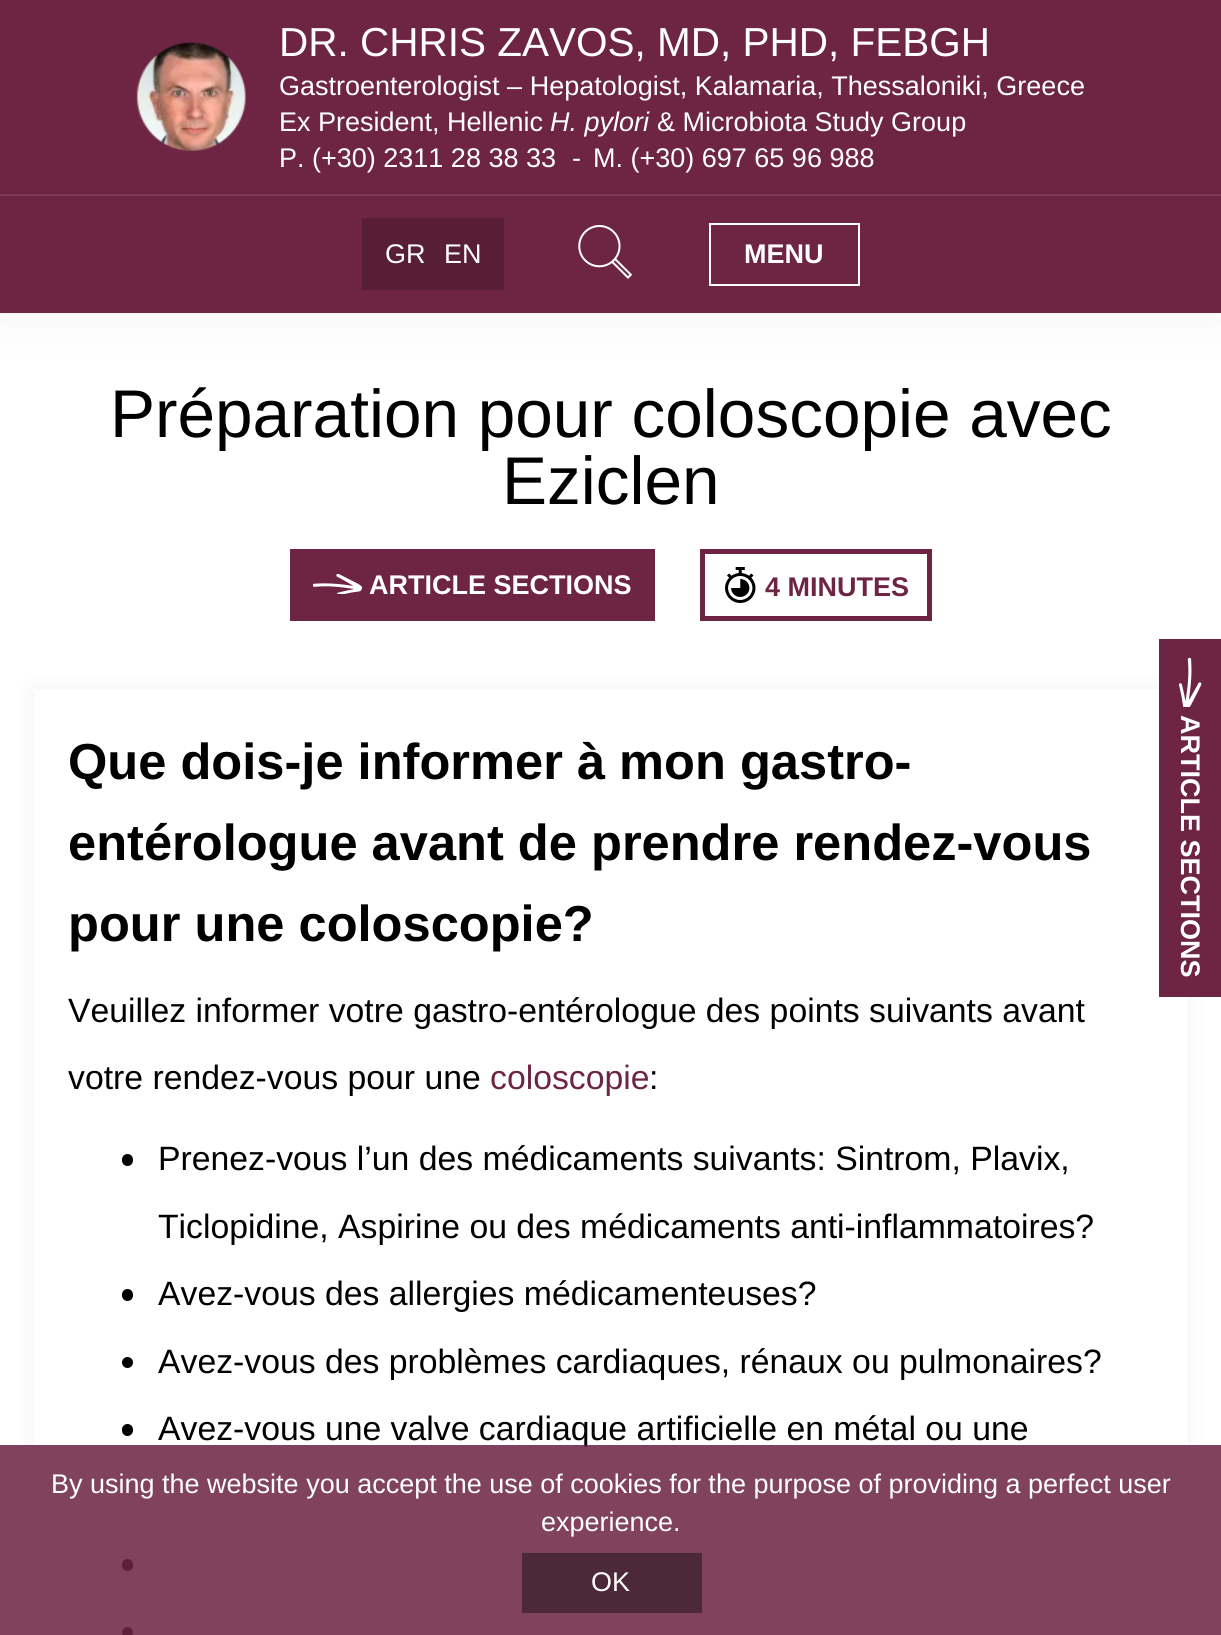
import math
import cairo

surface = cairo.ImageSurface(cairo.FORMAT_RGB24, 1221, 1635)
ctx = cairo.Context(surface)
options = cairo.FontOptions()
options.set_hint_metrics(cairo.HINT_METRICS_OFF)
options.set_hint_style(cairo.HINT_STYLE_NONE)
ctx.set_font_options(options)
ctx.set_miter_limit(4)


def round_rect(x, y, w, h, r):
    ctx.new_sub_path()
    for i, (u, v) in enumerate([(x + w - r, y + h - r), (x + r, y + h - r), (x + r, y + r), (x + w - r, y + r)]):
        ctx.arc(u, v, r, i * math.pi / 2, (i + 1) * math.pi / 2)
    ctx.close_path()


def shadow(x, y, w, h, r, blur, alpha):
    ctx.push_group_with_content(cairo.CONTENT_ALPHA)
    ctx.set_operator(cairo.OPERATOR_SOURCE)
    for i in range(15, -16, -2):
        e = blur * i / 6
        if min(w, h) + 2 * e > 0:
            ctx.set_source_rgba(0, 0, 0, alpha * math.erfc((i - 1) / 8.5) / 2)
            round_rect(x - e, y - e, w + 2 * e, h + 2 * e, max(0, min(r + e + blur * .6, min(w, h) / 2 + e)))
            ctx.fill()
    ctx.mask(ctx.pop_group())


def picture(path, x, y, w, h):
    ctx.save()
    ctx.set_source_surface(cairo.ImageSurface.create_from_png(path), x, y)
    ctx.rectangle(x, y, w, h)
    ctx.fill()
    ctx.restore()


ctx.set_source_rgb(1, 1, 1)
ctx.paint()
ctx.set_source_rgb(0, 0, 0)
shadow(0, 0, 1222, 313, 0, 29, 0.06)
ctx.set_source_rgb(0.431, 0.145, 0.267)
ctx.rectangle(0, 0, 1221, 313)
ctx.fill()
picture("img1.png", 136, 42, 110, 109)
ctx.select_font_face("Liberation Sans")
ctx.set_font_size(40.5)
ctx.set_source_rgb(1, 1, 1)
ctx.move_to(279, 56)
ctx.show_text("DR. CHRIS ZAVOS, MD, PHD, FEBGH")
ctx.set_font_size(27)
ctx.move_to(279, 95)
ctx.show_text("Gastroenterologist – Hepatologist, Kalamaria, Thessaloniki, Greece")
ctx.move_to(279, 131)
ctx.show_text("Ex President, Hellenic")
ctx.select_font_face("Liberation Sans", cairo.FONT_SLANT_ITALIC)
ctx.move_to(550, 131)
ctx.show_text("H. pylori")
ctx.select_font_face("Liberation Sans")
ctx.move_to(657, 131)
ctx.show_text("& Microbiota Study Group")
ctx.move_to(279, 167)
ctx.show_text("P. (+30) 2311 28 38 33")
ctx.move_to(572, 167)
ctx.show_text("-")
ctx.move_to(593, 167)
ctx.show_text("M. (+30) 697 65 96 988")
ctx.set_source_rgb(0.49, 0.231, 0.341)
ctx.rectangle(0, 194, 1221, 2)
ctx.fill()
ctx.set_source_rgb(0.345, 0.118, 0.212)
ctx.rectangle(362, 218, 142, 72)
ctx.fill()
ctx.set_source_rgb(1, 1, 1)
ctx.move_to(385, 263)
ctx.show_text("GR")
ctx.move_to(444, 263)
ctx.show_text("EN")
picture("img2.png", 578, 225, 54, 54)
ctx.rectangle(710, 224, 149, 61)
ctx.stroke()
ctx.select_font_face("Liberation Sans", cairo.FONT_SLANT_NORMAL, cairo.FONT_WEIGHT_BOLD)
ctx.move_to(744, 263)
ctx.show_text("MENU")
ctx.select_font_face("Liberation Sans")
ctx.set_font_size(67.5)
ctx.set_source_rgb(0, 0, 0)
ctx.move_to(110, 437)
ctx.show_text("Préparation pour coloscopie avec")
ctx.move_to(502, 504)
ctx.show_text("Eziclen")
ctx.set_source_rgb(0.431, 0.145, 0.267)
ctx.rectangle(290, 549, 365, 72)
ctx.fill()
picture("img3.png", 313, 574, 49, 20)
ctx.select_font_face("Liberation Sans", cairo.FONT_SLANT_NORMAL, cairo.FONT_WEIGHT_BOLD)
ctx.set_font_size(27)
ctx.set_source_rgb(1, 1, 1)
ctx.move_to(369, 594)
ctx.show_text("ARTICLE SECTIONS")
ctx.rectangle(702.5, 551.5, 227, 67)
ctx.set_source_rgb(0.431, 0.145, 0.267)
ctx.set_line_width(5)
ctx.stroke()
picture("img4.png", 725, 567, 31, 36)
ctx.move_to(765, 596)
ctx.show_text("4 MINUTES")
ctx.set_source_rgb(0, 0, 0)
shadow(34, 689, 1154, 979, 0, 11, 0.05)
ctx.set_source_rgb(1, 1, 1)
ctx.rectangle(34, 689, 1154, 946)
ctx.fill()
ctx.set_font_size(50.6)
ctx.set_source_rgb(0, 0, 0)
ctx.move_to(68, 779)
ctx.show_text("Que dois-je informer à mon gastro-")
ctx.move_to(68, 860)
ctx.show_text("entérologue avant de prendre rendez-vous")
ctx.move_to(68, 941)
ctx.show_text("pour une coloscopie?")
ctx.select_font_face("Liberation Sans")
ctx.set_font_size(33.75)
ctx.move_to(68, 1022)
ctx.show_text("Veuillez informer votre gastro-entérologue des points suivants avant")
ctx.move_to(68, 1089)
ctx.show_text("votre rendez-vous pour une")
ctx.set_source_rgb(0.431, 0.145, 0.267)
ctx.move_to(490, 1089)
ctx.show_text("coloscopie")
ctx.set_source_rgb(0, 0, 0)
ctx.move_to(649, 1089)
ctx.show_text(":")
round_rect(122, 1154, 11, 12, 5.5)
ctx.fill()
ctx.move_to(158, 1170)
ctx.show_text("Prenez-vous l’un des médicaments suivants: Sintrom, Plavix,")
ctx.move_to(158, 1238)
ctx.show_text("Ticlopidine, Aspirine ou des médicaments anti-inflammatoires?")
round_rect(122, 1289, 11, 12, 5.5)
ctx.fill()
ctx.move_to(158, 1305)
ctx.show_text("Avez-vous des allergies médicamenteuses?")
ctx.new_path()
ctx.arc(127.5, 1362.5, 5.5, 0, 2 * math.pi)
ctx.fill()
ctx.move_to(158, 1373)
ctx.show_text("Avez-vous des problèmes cardiaques, rénaux ou pulmonaires?")
round_rect(122, 1424, 11, 12, 5.5)
ctx.fill()
ctx.move_to(158, 1440)
ctx.show_text("Avez-vous une valve cardiaque artificielle en métal ou une")
round_rect(122, 1559, 11, 12, 5.5)
ctx.fill()
ctx.arc(127.5, 1632.5, 5.5, 0, 2 * math.pi)
ctx.fill()
ctx.set_source_rgb(0.431, 0.145, 0.267)
ctx.rectangle(1159, 639, 62, 358)
ctx.fill()
picture("img5.png", 1179, 657, 23, 50)
ctx.select_font_face("Liberation Sans", cairo.FONT_SLANT_NORMAL, cairo.FONT_WEIGHT_BOLD)
ctx.set_font_size(27)
ctx.set_source_rgb(1, 1, 1)
ctx.save()
ctx.translate(1181, 715)
ctx.rotate(90 * math.pi / 180)
ctx.move_to(0, 0)
ctx.show_text("ARTICLE SECTIONS")
ctx.restore()
ctx.set_source_rgba(0.431, 0.145, 0.267, 0.86)
ctx.rectangle(0, 1445, 1221, 190)
ctx.fill()
ctx.select_font_face("Liberation Sans")
ctx.set_source_rgb(1, 1, 1)
ctx.move_to(51, 1493)
ctx.show_text("By using the website you accept the use of cookies for the purpose of providing a perfect user")
ctx.move_to(541, 1531)
ctx.show_text("experience.")
ctx.set_source_rgba(0, 0, 0, 0.4)
ctx.rectangle(522, 1553, 180, 60)
ctx.fill()
ctx.set_source_rgb(1, 1, 1)
ctx.move_to(591, 1591)
ctx.show_text("OK")
surface.write_to_png("page.png")
